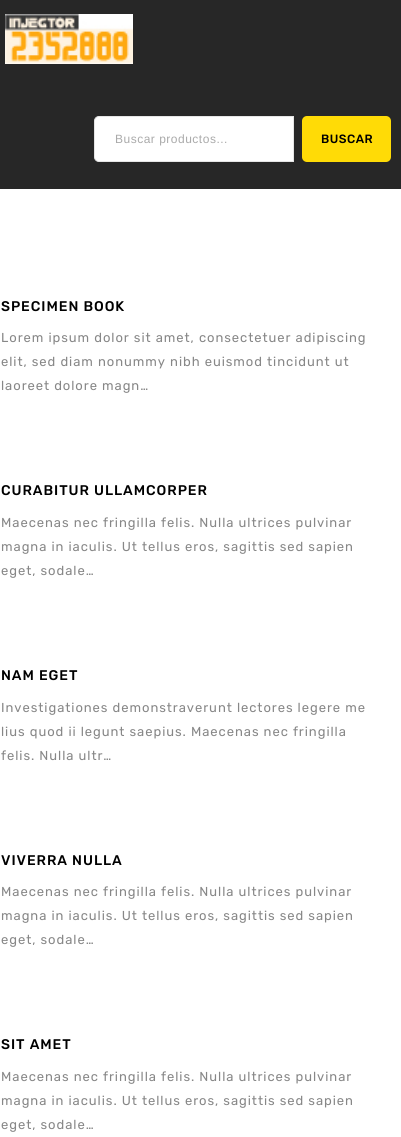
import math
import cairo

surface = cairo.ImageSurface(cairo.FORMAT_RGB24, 401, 1137)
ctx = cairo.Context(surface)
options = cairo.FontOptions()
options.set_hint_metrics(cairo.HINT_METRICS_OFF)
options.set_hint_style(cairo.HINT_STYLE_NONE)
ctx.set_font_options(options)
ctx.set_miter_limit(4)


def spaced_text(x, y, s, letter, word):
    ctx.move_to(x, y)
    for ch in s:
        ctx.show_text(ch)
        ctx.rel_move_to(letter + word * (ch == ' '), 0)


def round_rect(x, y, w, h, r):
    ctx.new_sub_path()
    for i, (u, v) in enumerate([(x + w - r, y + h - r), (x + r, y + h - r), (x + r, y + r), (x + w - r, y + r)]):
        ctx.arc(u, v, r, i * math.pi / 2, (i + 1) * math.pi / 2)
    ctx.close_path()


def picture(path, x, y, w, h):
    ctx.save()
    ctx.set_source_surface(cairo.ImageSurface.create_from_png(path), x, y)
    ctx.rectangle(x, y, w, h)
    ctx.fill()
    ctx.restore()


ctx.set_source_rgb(1, 1, 1)
ctx.paint()
ctx.set_source_rgb(0.153, 0.153, 0.153)
ctx.rectangle(0, 0, 401, 189)
ctx.fill()
picture("img1.png", 5, 14, 128, 50)
ctx.set_source_rgb(1, 1, 1)
ctx.new_path()
ctx.move_to(99, 116.5)
ctx.line_to(293.5, 116.5)
ctx.line_to(293.5, 161.5)
ctx.line_to(99, 161.5)
ctx.curve_to(96.5, 161.5, 94.5, 159.5, 94.5, 157)
ctx.line_to(94.5, 121)
ctx.curve_to(94.5, 118.5, 96.5, 116.5, 99, 116.5)
ctx.close_path()
ctx.fill_preserve()
ctx.set_source_rgb(0.898, 0.898, 0.898)
ctx.set_line_width(1)
ctx.stroke()
ctx.select_font_face("Liberation Sans")
ctx.set_font_size(12)
ctx.set_source_rgb(0.667, 0.667, 0.667)
spaced_text(115, 143, "Buscar productos...", 0.5, 0)
ctx.set_source_rgb(1, 0.859, 0.024)
round_rect(302, 116, 89, 46, 5)
ctx.fill()
ctx.select_font_face("Rubik Medium")
ctx.set_source_rgb(0, 0, 0)
spaced_text(321, 143, "BUSCAR", 0.5, 0)
ctx.set_font_size(14)
spaced_text(1, 311, "SPECIMEN BOOK", 0.95, 0)
ctx.select_font_face("Rubik Light")
ctx.set_font_size(13)
ctx.set_source_rgb(0.529, 0.529, 0.529)
spaced_text(1, 342, "Lorem ipsum dolor sit amet, consectetuer adipiscing", 0.95, 0)
spaced_text(1, 366, "elit, sed diam nonummy nibh euismod tincidunt ut", 0.95, 0)
spaced_text(1, 390, "laoreet dolore magn…", 0.95, 0)
ctx.select_font_face("Rubik Medium")
ctx.set_font_size(14)
ctx.set_source_rgb(0, 0, 0)
spaced_text(1, 495, "CURABITUR ULLAMCORPER", 0.95, 0)
ctx.select_font_face("Rubik Light")
ctx.set_font_size(13)
ctx.set_source_rgb(0.529, 0.529, 0.529)
spaced_text(1, 527, "Maecenas nec fringilla felis. Nulla ultrices pulvinar", 0.95, 0)
spaced_text(1, 551, "magna in iaculis. Ut tellus eros, sagittis sed sapien", 0.95, 0)
spaced_text(1, 575, "eget, sodale…", 0.95, 0)
ctx.select_font_face("Rubik Medium")
ctx.set_font_size(14)
ctx.set_source_rgb(0, 0, 0)
spaced_text(1, 680, "NAM EGET", 0.95, 0)
ctx.select_font_face("Rubik Light")
ctx.set_font_size(13)
ctx.set_source_rgb(0.529, 0.529, 0.529)
spaced_text(1, 712, "Investigationes demonstraverunt lectores legere me", 0.95, 0)
spaced_text(1, 736, "lius quod ii legunt saepius. Maecenas nec fringilla", 0.95, 0)
spaced_text(1, 760, "felis. Nulla ultr…", 0.95, 0)
ctx.select_font_face("Rubik Medium")
ctx.set_font_size(14)
ctx.set_source_rgb(0, 0, 0)
spaced_text(1, 865, "VIVERRA NULLA", 0.95, 0)
ctx.select_font_face("Rubik Light")
ctx.set_font_size(13)
ctx.set_source_rgb(0.529, 0.529, 0.529)
spaced_text(1, 896, "Maecenas nec fringilla felis. Nulla ultrices pulvinar", 0.95, 0)
spaced_text(1, 920, "magna in iaculis. Ut tellus eros, sagittis sed sapien", 0.95, 0)
spaced_text(1, 944, "eget, sodale…", 0.95, 0)
ctx.select_font_face("Rubik Medium")
ctx.set_font_size(14)
ctx.set_source_rgb(0, 0, 0)
spaced_text(1, 1049, "SIT AMET", 0.95, 0)
ctx.select_font_face("Rubik Light")
ctx.set_font_size(13)
ctx.set_source_rgb(0.529, 0.529, 0.529)
spaced_text(1, 1081, "Maecenas nec fringilla felis. Nulla ultrices pulvinar", 0.95, 0)
spaced_text(1, 1105, "magna in iaculis. Ut tellus eros, sagittis sed sapien", 0.95, 0)
spaced_text(1, 1129, "eget, sodale…", 0.95, 0)
surface.write_to_png("page.png")
